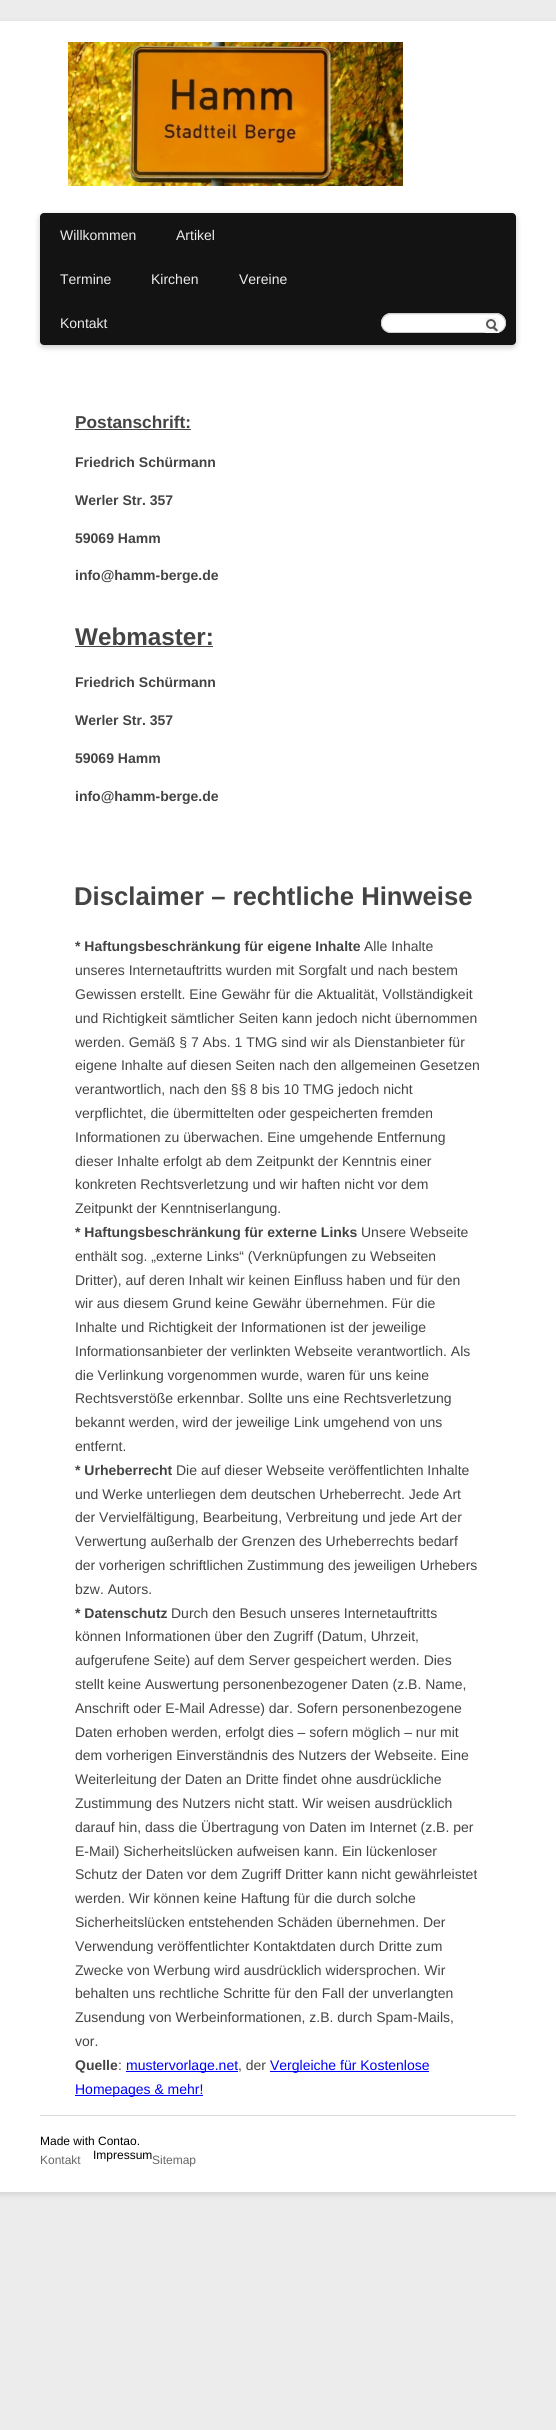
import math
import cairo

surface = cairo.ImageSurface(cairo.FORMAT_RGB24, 556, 2430)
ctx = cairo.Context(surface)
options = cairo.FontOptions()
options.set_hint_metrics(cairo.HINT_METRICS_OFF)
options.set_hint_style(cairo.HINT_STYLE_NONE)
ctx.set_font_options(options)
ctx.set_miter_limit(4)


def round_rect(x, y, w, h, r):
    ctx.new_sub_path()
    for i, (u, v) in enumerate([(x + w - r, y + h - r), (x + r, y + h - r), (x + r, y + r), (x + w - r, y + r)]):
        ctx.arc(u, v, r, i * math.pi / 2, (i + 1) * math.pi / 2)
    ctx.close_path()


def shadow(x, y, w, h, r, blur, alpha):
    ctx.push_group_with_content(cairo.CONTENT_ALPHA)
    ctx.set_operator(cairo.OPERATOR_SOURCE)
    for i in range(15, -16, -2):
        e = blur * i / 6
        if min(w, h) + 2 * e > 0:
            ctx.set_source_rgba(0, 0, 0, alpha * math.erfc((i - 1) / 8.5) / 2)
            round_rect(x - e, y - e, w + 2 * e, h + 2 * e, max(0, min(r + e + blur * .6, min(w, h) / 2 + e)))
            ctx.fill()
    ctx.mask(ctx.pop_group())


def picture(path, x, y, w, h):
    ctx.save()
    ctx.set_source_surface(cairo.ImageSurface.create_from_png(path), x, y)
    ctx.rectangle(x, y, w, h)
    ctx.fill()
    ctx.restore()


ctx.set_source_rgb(0.925, 0.925, 0.925)
ctx.paint()
ctx.set_source_rgb(0.557, 0.557, 0.557)
shadow(0, 23, 556, 2171, 0, 3, 0.3)
ctx.set_source_rgb(1, 1, 1)
ctx.rectangle(0, 21, 556, 2171)
ctx.fill()
picture("img1.png", 68, 42, 335, 144)
ctx.set_source_rgb(0.267, 0.267, 0.267)
shadow(40, 215, 476, 132, 4, 3, 0.3)
ctx.set_source_rgb(0.078, 0.078, 0.078)
round_rect(40, 213, 476, 132, 4)
ctx.fill()
ctx.select_font_face("Liberation Sans")
ctx.set_font_size(14)
ctx.set_source_rgb(0.925, 0.925, 0.925)
ctx.move_to(60, 240)
ctx.show_text("Willkommen")
ctx.move_to(176, 240)
ctx.show_text("Artikel")
ctx.move_to(60, 284)
ctx.show_text("Termine")
ctx.move_to(151, 284)
ctx.show_text("Kirchen")
ctx.move_to(239, 284)
ctx.show_text("Vereine")
ctx.move_to(60, 328)
ctx.show_text("Kontakt")
ctx.set_source_rgb(1, 1, 1)
round_rect(381, 313, 125, 20, 10)
ctx.fill()
ctx.set_source_rgb(0.933, 0.933, 0.933)
ctx.new_path()
ctx.move_to(391, 315)
ctx.line_to(496, 315)
ctx.curve_to(501, 315, 505, 319, 505, 323)
ctx.curve_to(506, 310, 485, 314, 478, 314)
ctx.line_to(408, 314)
ctx.curve_to(402, 314, 381, 310, 382, 323)
ctx.curve_to(382, 319, 386, 315, 391, 315)
ctx.close_path()
ctx.fill()
round_rect(381.5, 313.5, 124, 19, 9.5)
ctx.set_source_rgb(0.8, 0.8, 0.8)
ctx.set_line_width(1)
ctx.stroke()
picture("img2.png", 485, 318, 14, 15)
ctx.select_font_face("Liberation Sans", cairo.FONT_SLANT_NORMAL, cairo.FONT_WEIGHT_BOLD)
ctx.set_font_size(17.25)
ctx.set_source_rgb(0.267, 0.267, 0.267)
ctx.move_to(75, 428)
ctx.show_text("Postanschrift:")
ctx.rectangle(75, 429, 116, 1)
ctx.fill()
ctx.set_font_size(14)
ctx.move_to(75, 467)
ctx.show_text("Friedrich Schürmann")
ctx.move_to(75, 505)
ctx.show_text("Werler Str. 357")
ctx.move_to(75, 543)
ctx.show_text("59069 Hamm")
ctx.move_to(75, 580)
ctx.show_text("info@hamm-berge.de")
ctx.set_font_size(24.25)
ctx.move_to(75, 645)
ctx.show_text("Webmaster:")
ctx.rectangle(75, 646, 138, 1)
ctx.fill()
ctx.set_font_size(14)
ctx.move_to(75, 687)
ctx.show_text("Friedrich Schürmann")
ctx.move_to(75, 725)
ctx.show_text("Werler Str. 357")
ctx.move_to(75, 763)
ctx.show_text("59069 Hamm")
ctx.move_to(75, 801)
ctx.show_text("info@hamm-berge.de")
ctx.set_font_size(25.7)
ctx.move_to(74, 905)
ctx.show_text("Disclaimer – rechtliche Hinweise")
ctx.set_font_size(14)
ctx.move_to(75, 951)
ctx.show_text("* Haftungsbeschränkung für eigene Inhalte")
ctx.select_font_face("Liberation Sans")
ctx.move_to(364, 951)
ctx.show_text("Alle Inhalte")
ctx.move_to(75, 975)
ctx.show_text("unseres Internetauftritts wurden mit Sorgfalt und nach bestem")
ctx.move_to(75, 999)
ctx.show_text("Gewissen erstellt. Eine Gewähr für die Aktualität, Vollständigkeit")
ctx.move_to(75, 1023)
ctx.show_text("und Richtigkeit sämtlicher Seiten kann jedoch nicht übernommen")
ctx.move_to(75, 1047)
ctx.show_text("werden. Gemäß § 7 Abs. 1 TMG sind wir als Dienstanbieter für")
ctx.move_to(75, 1070)
ctx.show_text("eigene Inhalte auf diesen Seiten nach den allgemeinen Gesetzen")
ctx.move_to(75, 1094)
ctx.show_text("verantwortlich, nach den §§ 8 bis 10 TMG jedoch nicht")
ctx.move_to(75, 1118)
ctx.show_text("verpflichtet, die übermittelten oder gespeicherten fremden")
ctx.move_to(75, 1142)
ctx.show_text("Informationen zu überwachen. Eine umgehende Entfernung")
ctx.move_to(75, 1166)
ctx.show_text("dieser Inhalte erfolgt ab dem Zeitpunkt der Kenntnis einer")
ctx.move_to(75, 1189)
ctx.show_text("konkreten Rechtsverletzung und wir haften nicht vor dem")
ctx.move_to(75, 1213)
ctx.show_text("Zeitpunkt der Kenntniserlangung.")
ctx.select_font_face("Liberation Sans", cairo.FONT_SLANT_NORMAL, cairo.FONT_WEIGHT_BOLD)
ctx.move_to(75, 1237)
ctx.show_text("* Haftungsbeschränkung für externe Links")
ctx.select_font_face("Liberation Sans")
ctx.move_to(361, 1237)
ctx.show_text("Unsere Webseite")
ctx.move_to(75, 1261)
ctx.show_text("enthält sog. „externe Links“ (Verknüpfungen zu Webseiten")
ctx.move_to(75, 1285)
ctx.show_text("Dritter), auf deren Inhalt wir keinen Einfluss haben und für den")
ctx.move_to(75, 1308)
ctx.show_text("wir aus diesem Grund keine Gewähr übernehmen. Für die")
ctx.move_to(75, 1332)
ctx.show_text("Inhalte und Richtigkeit der Informationen ist der jeweilige")
ctx.move_to(75, 1356)
ctx.show_text("Informationsanbieter der verlinkten Webseite verantwortlich. Als")
ctx.move_to(75, 1380)
ctx.show_text("die Verlinkung vorgenommen wurde, waren für uns keine")
ctx.move_to(75, 1403)
ctx.show_text("Rechtsverstöße erkennbar. Sollte uns eine Rechtsverletzung")
ctx.move_to(75, 1427)
ctx.show_text("bekannt werden, wird der jeweilige Link umgehend von uns")
ctx.move_to(75, 1451)
ctx.show_text("entfernt.")
ctx.select_font_face("Liberation Sans", cairo.FONT_SLANT_NORMAL, cairo.FONT_WEIGHT_BOLD)
ctx.move_to(75, 1475)
ctx.show_text("* Urheberrecht")
ctx.select_font_face("Liberation Sans")
ctx.move_to(176, 1475)
ctx.show_text("Die auf dieser Webseite veröffentlichten Inhalte")
ctx.move_to(75, 1499)
ctx.show_text("und Werke unterliegen dem deutschen Urheberrecht. Jede Art")
ctx.move_to(75, 1522)
ctx.show_text("der Vervielfältigung, Bearbeitung, Verbreitung und jede Art der")
ctx.move_to(75, 1546)
ctx.show_text("Verwertung außerhalb der Grenzen des Urheberrechts bedarf")
ctx.move_to(75, 1570)
ctx.show_text("der vorherigen schriftlichen Zustimmung des jeweiligen Urhebers")
ctx.move_to(75, 1594)
ctx.show_text("bzw. Autors.")
ctx.select_font_face("Liberation Sans", cairo.FONT_SLANT_NORMAL, cairo.FONT_WEIGHT_BOLD)
ctx.move_to(75, 1618)
ctx.show_text("* Datenschutz")
ctx.select_font_face("Liberation Sans")
ctx.move_to(171, 1618)
ctx.show_text("Durch den Besuch unseres Internetauftritts")
ctx.move_to(75, 1641)
ctx.show_text("können Informationen über den Zugriff (Datum, Uhrzeit,")
ctx.move_to(75, 1665)
ctx.show_text("aufgerufene Seite) auf dem Server gespeichert werden. Dies")
ctx.move_to(75, 1689)
ctx.show_text("stellt keine Auswertung personenbezogener Daten (z.B. Name,")
ctx.move_to(75, 1713)
ctx.show_text("Anschrift oder E-Mail Adresse) dar. Sofern personenbezogene")
ctx.move_to(75, 1737)
ctx.show_text("Daten erhoben werden, erfolgt dies – sofern möglich – nur mit")
ctx.move_to(75, 1760)
ctx.show_text("dem vorherigen Einverständnis des Nutzers der Webseite. Eine")
ctx.move_to(75, 1784)
ctx.show_text("Weiterleitung der Daten an Dritte findet ohne ausdrückliche")
ctx.move_to(75, 1808)
ctx.show_text("Zustimmung des Nutzers nicht statt. Wir weisen ausdrücklich")
ctx.move_to(75, 1832)
ctx.show_text("darauf hin, dass die Übertragung von Daten im Internet (z.B. per")
ctx.move_to(75, 1856)
ctx.show_text("E-Mail) Sicherheitslücken aufweisen kann. Ein lückenloser")
ctx.move_to(75, 1879)
ctx.show_text("Schutz der Daten vor dem Zugriff Dritter kann nicht gewährleistet")
ctx.move_to(75, 1903)
ctx.show_text("werden. Wir können keine Haftung für die durch solche")
ctx.move_to(75, 1927)
ctx.show_text("Sicherheitslücken entstehenden Schäden übernehmen. Der")
ctx.move_to(75, 1951)
ctx.show_text("Verwendung veröffentlichter Kontaktdaten durch Dritte zum")
ctx.move_to(75, 1975)
ctx.show_text("Zwecke von Werbung wird ausdrücklich widersprochen. Wir")
ctx.move_to(75, 1998)
ctx.show_text("behalten uns rechtliche Schritte für den Fall der unverlangten")
ctx.move_to(75, 2022)
ctx.show_text("Zusendung von Werbeinformationen, z.B. durch Spam-Mails,")
ctx.move_to(75, 2046)
ctx.show_text("vor.")
ctx.select_font_face("Liberation Sans", cairo.FONT_SLANT_NORMAL, cairo.FONT_WEIGHT_BOLD)
ctx.move_to(75, 2070)
ctx.show_text("Quelle")
ctx.select_font_face("Liberation Sans")
ctx.move_to(118, 2070)
ctx.show_text(":")
ctx.set_source_rgb(0, 0, 1)
ctx.rectangle(126, 2071, 112, 1)
ctx.fill()
ctx.move_to(126, 2070)
ctx.show_text("mustervorlage.net")
ctx.set_source_rgb(0.267, 0.267, 0.267)
ctx.move_to(238, 2070)
ctx.show_text(", der")
ctx.set_source_rgb(0, 0, 1)
ctx.rectangle(270, 2071, 159, 1)
ctx.fill()
ctx.move_to(270, 2070)
ctx.show_text("Vergleiche für Kostenlose")
ctx.rectangle(75, 2095, 128, 1)
ctx.fill()
ctx.move_to(75, 2094)
ctx.show_text("Homepages & mehr!")
ctx.set_source_rgb(0.851, 0.851, 0.851)
ctx.rectangle(40, 2115, 476, 1)
ctx.fill()
ctx.set_font_size(12)
ctx.set_source_rgb(0, 0, 0)
ctx.move_to(40, 2145)
ctx.show_text("Made with Contao.")
ctx.set_source_rgb(0.4, 0.4, 0.4)
ctx.move_to(40, 2164)
ctx.show_text("Kontakt")
ctx.set_source_rgb(0, 0, 0)
ctx.move_to(93, 2159)
ctx.show_text("Impressum")
ctx.set_source_rgb(0.4, 0.4, 0.4)
ctx.move_to(152, 2164)
ctx.show_text("Sitemap")
surface.write_to_png("page.png")
